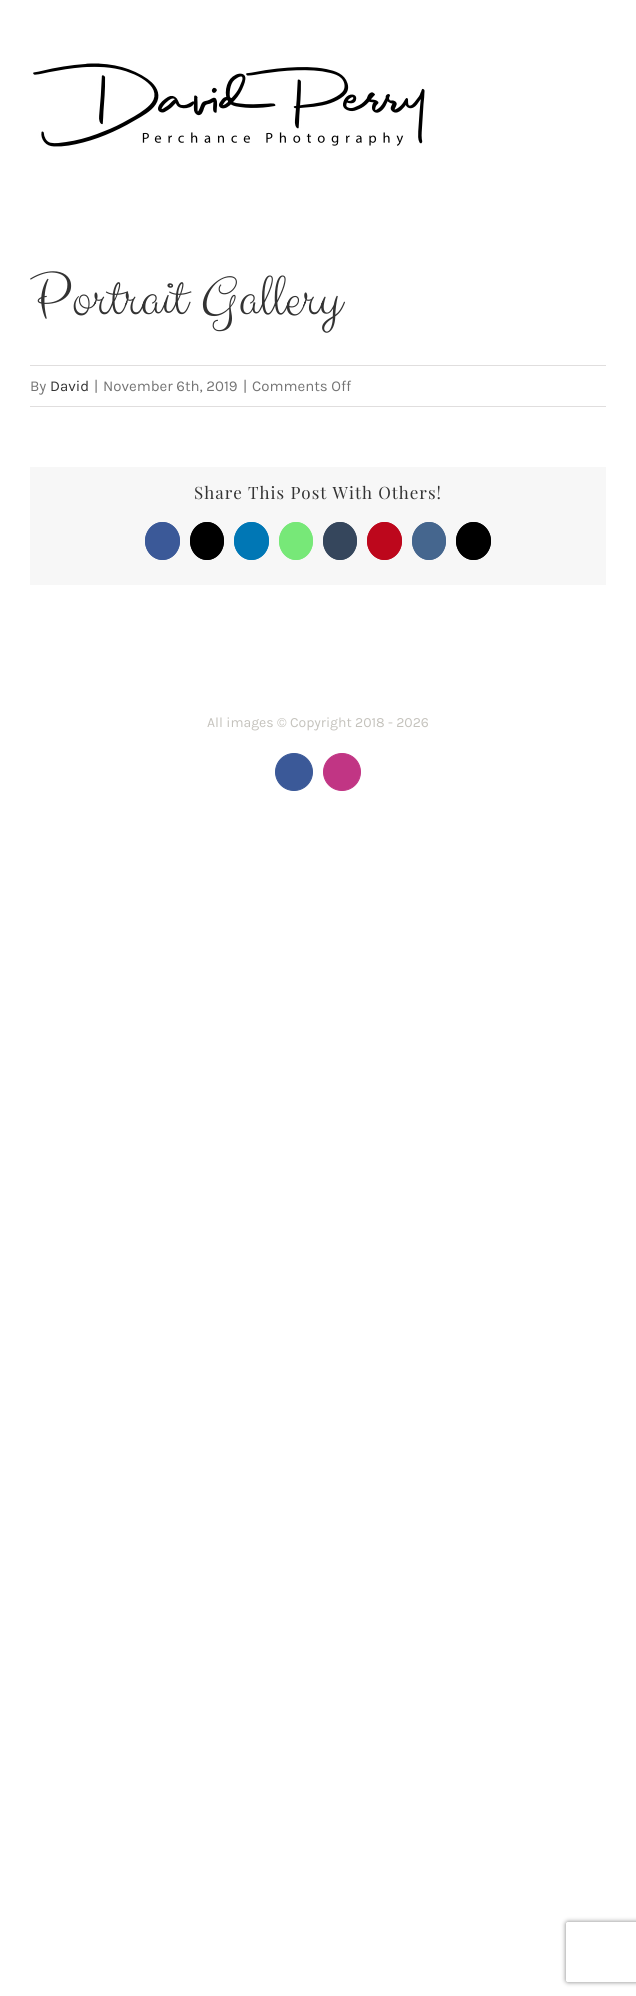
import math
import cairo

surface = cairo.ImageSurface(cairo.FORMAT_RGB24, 636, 1996)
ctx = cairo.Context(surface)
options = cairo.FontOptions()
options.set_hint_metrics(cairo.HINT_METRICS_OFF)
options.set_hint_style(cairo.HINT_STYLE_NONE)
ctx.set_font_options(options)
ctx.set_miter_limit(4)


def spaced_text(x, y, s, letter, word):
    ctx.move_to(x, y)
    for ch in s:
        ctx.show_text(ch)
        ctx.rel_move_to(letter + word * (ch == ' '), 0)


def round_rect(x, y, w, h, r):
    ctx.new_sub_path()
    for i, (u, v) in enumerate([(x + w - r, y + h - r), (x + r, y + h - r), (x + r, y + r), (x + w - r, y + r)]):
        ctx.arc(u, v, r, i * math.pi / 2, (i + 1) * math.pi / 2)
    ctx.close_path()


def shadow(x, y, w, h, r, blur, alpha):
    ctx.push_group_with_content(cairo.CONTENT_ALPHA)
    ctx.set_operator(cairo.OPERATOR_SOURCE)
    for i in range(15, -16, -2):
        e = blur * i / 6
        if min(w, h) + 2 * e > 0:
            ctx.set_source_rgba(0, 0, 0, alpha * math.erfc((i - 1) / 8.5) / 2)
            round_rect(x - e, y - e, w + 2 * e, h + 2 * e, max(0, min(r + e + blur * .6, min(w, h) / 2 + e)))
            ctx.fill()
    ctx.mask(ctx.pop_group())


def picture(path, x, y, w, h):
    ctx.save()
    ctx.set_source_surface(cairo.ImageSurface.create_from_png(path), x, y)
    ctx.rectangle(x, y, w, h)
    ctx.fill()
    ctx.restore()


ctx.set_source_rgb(1, 1, 1)
ctx.paint()
picture("img1.png", 33, 63, 392, 84)
ctx.select_font_face("Clicker Script")
ctx.set_font_size(60)
ctx.set_source_rgb(0.2, 0.2, 0.2)
ctx.move_to(30, 316)
ctx.show_text("Portrait Gallery")
ctx.set_source_rgb(0.878, 0.871, 0.871)
ctx.rectangle(30, 365, 576, 1)
ctx.fill()
ctx.rectangle(30, 406, 576, 1)
ctx.fill()
ctx.select_font_face("Karla")
ctx.set_font_size(15)
ctx.set_source_rgb(0.455, 0.455, 0.455)
ctx.move_to(30, 391)
ctx.show_text("By")
ctx.set_source_rgb(0.2, 0.2, 0.2)
ctx.move_to(50, 391)
ctx.show_text("David")
ctx.set_source_rgb(0.455, 0.455, 0.455)
ctx.move_to(94, 391)
ctx.show_text("|")
ctx.move_to(103, 391)
ctx.show_text("November 6th, 2019")
ctx.move_to(243, 391)
ctx.show_text("|")
ctx.move_to(252, 391)
ctx.show_text("Comments Off")
ctx.set_source_rgb(0.965, 0.965, 0.965)
ctx.rectangle(30, 467, 576, 118)
ctx.fill()
ctx.select_font_face("Playfair Display")
ctx.set_font_size(17)
ctx.set_source_rgb(0.2, 0.2, 0.2)
spaced_text(194, 499, "Share This Post With Others!", 1, 0)
ctx.set_source_rgb(0.231, 0.349, 0.596)
ctx.new_path()
ctx.move_to(162.5, 522)
ctx.curve_to(172, 522, 180, 530.5, 180, 541)
ctx.curve_to(180, 551.5, 172, 560, 162.5, 560)
ctx.curve_to(153, 560, 145, 551.5, 145, 541)
ctx.curve_to(145, 530.5, 153, 522, 162.5, 522)
ctx.close_path()
ctx.fill()
ctx.new_path()
ctx.move_to(162.5, 522.5)
ctx.curve_to(172, 522.5, 179.5, 531, 179.5, 541)
ctx.curve_to(179.5, 551, 172, 559.5, 162.5, 559.5)
ctx.curve_to(153, 559.5, 145.5, 551, 145.5, 541)
ctx.curve_to(145.5, 531, 153, 522.5, 162.5, 522.5)
ctx.close_path()
ctx.set_line_width(1)
ctx.stroke()
ctx.set_source_rgb(0, 0, 0)
ctx.new_path()
ctx.move_to(207, 522)
ctx.curve_to(216.5, 522, 224, 530.5, 224, 541)
ctx.curve_to(224, 551.5, 216.5, 560, 207, 560)
ctx.curve_to(197.5, 560, 190, 551.5, 190, 541)
ctx.curve_to(190, 530.5, 197.5, 522, 207, 522)
ctx.close_path()
ctx.fill()
ctx.new_path()
ctx.move_to(207, 522.5)
ctx.curve_to(216, 522.5, 223.5, 531, 223.5, 541)
ctx.curve_to(223.5, 551, 216, 559.5, 207, 559.5)
ctx.curve_to(198, 559.5, 190.5, 551, 190.5, 541)
ctx.curve_to(190.5, 531, 198, 522.5, 207, 522.5)
ctx.close_path()
ctx.stroke()
ctx.set_source_rgb(0, 0.467, 0.71)
ctx.new_path()
ctx.move_to(251.5, 522)
ctx.curve_to(261, 522, 269, 530.5, 269, 541)
ctx.curve_to(269, 551.5, 261, 560, 251.5, 560)
ctx.curve_to(242, 560, 234, 551.5, 234, 541)
ctx.curve_to(234, 530.5, 242, 522, 251.5, 522)
ctx.close_path()
ctx.fill()
ctx.new_path()
ctx.move_to(251.5, 522.5)
ctx.curve_to(261, 522.5, 268.5, 531, 268.5, 541)
ctx.curve_to(268.5, 551, 261, 559.5, 251.5, 559.5)
ctx.curve_to(242, 559.5, 234.5, 551, 234.5, 541)
ctx.curve_to(234.5, 531, 242, 522.5, 251.5, 522.5)
ctx.close_path()
ctx.stroke()
ctx.set_source_rgb(0.467, 0.91, 0.471)
ctx.new_path()
ctx.move_to(296, 522)
ctx.curve_to(305.5, 522, 313, 530.5, 313, 541)
ctx.curve_to(313, 551.5, 305.5, 560, 296, 560)
ctx.curve_to(286.5, 560, 279, 551.5, 279, 541)
ctx.curve_to(279, 530.5, 286.5, 522, 296, 522)
ctx.close_path()
ctx.fill()
ctx.new_path()
ctx.move_to(296, 522.5)
ctx.curve_to(305, 522.5, 312.5, 531, 312.5, 541)
ctx.curve_to(312.5, 551, 305, 559.5, 296, 559.5)
ctx.curve_to(287, 559.5, 279.5, 551, 279.5, 541)
ctx.curve_to(279.5, 531, 287, 522.5, 296, 522.5)
ctx.close_path()
ctx.stroke()
ctx.set_source_rgb(0.208, 0.275, 0.361)
ctx.new_path()
ctx.move_to(340, 522)
ctx.curve_to(349.5, 522, 357, 530.5, 357, 541)
ctx.curve_to(357, 551.5, 349.5, 560, 340, 560)
ctx.curve_to(330.5, 560, 323, 551.5, 323, 541)
ctx.curve_to(323, 530.5, 330.5, 522, 340, 522)
ctx.close_path()
ctx.fill()
ctx.new_path()
ctx.move_to(340, 522.5)
ctx.curve_to(349, 522.5, 356.5, 531, 356.5, 541)
ctx.curve_to(356.5, 551, 349, 559.5, 340, 559.5)
ctx.curve_to(331, 559.5, 323.5, 551, 323.5, 541)
ctx.curve_to(323.5, 531, 331, 522.5, 340, 522.5)
ctx.close_path()
ctx.stroke()
ctx.set_source_rgb(0.741, 0.031, 0.11)
ctx.new_path()
ctx.move_to(384.5, 522)
ctx.curve_to(394, 522, 402, 530.5, 402, 541)
ctx.curve_to(402, 551.5, 394, 560, 384.5, 560)
ctx.curve_to(375, 560, 367, 551.5, 367, 541)
ctx.curve_to(367, 530.5, 375, 522, 384.5, 522)
ctx.close_path()
ctx.fill()
ctx.new_path()
ctx.move_to(384.5, 522.5)
ctx.curve_to(394, 522.5, 401.5, 531, 401.5, 541)
ctx.curve_to(401.5, 551, 394, 559.5, 384.5, 559.5)
ctx.curve_to(375, 559.5, 367.5, 551, 367.5, 541)
ctx.curve_to(367.5, 531, 375, 522.5, 384.5, 522.5)
ctx.close_path()
ctx.stroke()
ctx.set_source_rgb(0.271, 0.4, 0.557)
ctx.new_path()
ctx.move_to(429, 522)
ctx.curve_to(438.5, 522, 446, 530.5, 446, 541)
ctx.curve_to(446, 551.5, 438.5, 560, 429, 560)
ctx.curve_to(419.5, 560, 412, 551.5, 412, 541)
ctx.curve_to(412, 530.5, 419.5, 522, 429, 522)
ctx.close_path()
ctx.fill()
ctx.new_path()
ctx.move_to(429, 522.5)
ctx.curve_to(438, 522.5, 445.5, 531, 445.5, 541)
ctx.curve_to(445.5, 551, 438, 559.5, 429, 559.5)
ctx.curve_to(420, 559.5, 412.5, 551, 412.5, 541)
ctx.curve_to(412.5, 531, 420, 522.5, 429, 522.5)
ctx.close_path()
ctx.stroke()
ctx.set_source_rgb(0, 0, 0)
ctx.new_path()
ctx.move_to(473.5, 522)
ctx.curve_to(483, 522, 491, 530.5, 491, 541)
ctx.curve_to(491, 551.5, 483, 560, 473.5, 560)
ctx.curve_to(464, 560, 456, 551.5, 456, 541)
ctx.curve_to(456, 530.5, 464, 522, 473.5, 522)
ctx.close_path()
ctx.fill()
ctx.new_path()
ctx.move_to(473.5, 522.5)
ctx.curve_to(483, 522.5, 490.5, 531, 490.5, 541)
ctx.curve_to(490.5, 551, 483, 559.5, 473.5, 559.5)
ctx.curve_to(464, 559.5, 456.5, 551, 456.5, 541)
ctx.curve_to(456.5, 531, 464, 522.5, 473.5, 522.5)
ctx.close_path()
ctx.stroke()
ctx.select_font_face("Karla")
ctx.set_font_size(14)
ctx.set_source_rgb(0.769, 0.761, 0.737)
ctx.move_to(207, 727)
ctx.show_text("All images © Copyright 2018 - 2026")
ctx.set_source_rgb(0.231, 0.349, 0.596)
ctx.new_path()
ctx.arc(294, 772, 18.5, 0, 2 * math.pi)
ctx.fill_preserve()
ctx.stroke()
ctx.set_source_rgb(0.757, 0.208, 0.518)
ctx.arc(342, 772, 18.5, 0, 2 * math.pi)
ctx.fill_preserve()
ctx.stroke()
ctx.save()
ctx.set_fill_rule(cairo.FILL_RULE_EVEN_ODD)
ctx.new_path()
ctx.move_to(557, 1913)
ctx.line_to(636, 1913)
ctx.line_to(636, 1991)
ctx.line_to(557, 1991)
ctx.close_path()
ctx.move_to(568, 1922)
ctx.line_to(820, 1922)
ctx.curve_to(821, 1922, 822, 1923, 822, 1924)
ctx.line_to(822, 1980)
ctx.curve_to(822, 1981, 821, 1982, 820, 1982)
ctx.line_to(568, 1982)
ctx.curve_to(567, 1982, 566, 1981, 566, 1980)
ctx.line_to(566, 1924)
ctx.curve_to(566, 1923, 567, 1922, 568, 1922)
ctx.close_path()
ctx.clip()
ctx.set_source_rgb(0.502, 0.502, 0.502)
shadow(566, 1922, 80, 60, 2, 2.5, 1)
ctx.restore()
surface.write_to_png("page.png")
